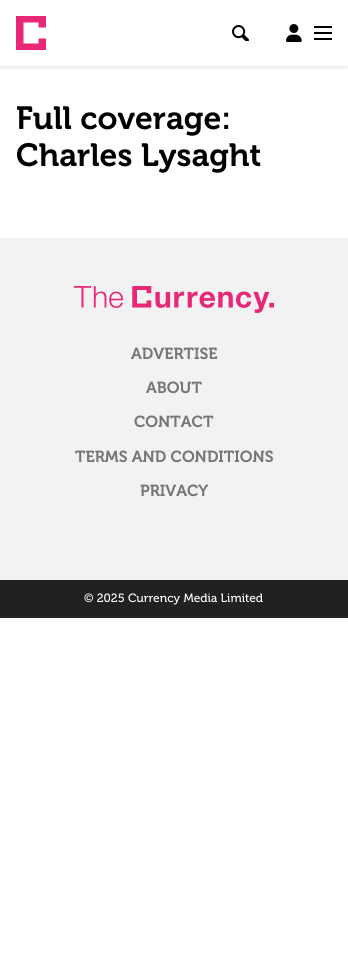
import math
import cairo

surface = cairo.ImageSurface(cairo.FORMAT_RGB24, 348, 976)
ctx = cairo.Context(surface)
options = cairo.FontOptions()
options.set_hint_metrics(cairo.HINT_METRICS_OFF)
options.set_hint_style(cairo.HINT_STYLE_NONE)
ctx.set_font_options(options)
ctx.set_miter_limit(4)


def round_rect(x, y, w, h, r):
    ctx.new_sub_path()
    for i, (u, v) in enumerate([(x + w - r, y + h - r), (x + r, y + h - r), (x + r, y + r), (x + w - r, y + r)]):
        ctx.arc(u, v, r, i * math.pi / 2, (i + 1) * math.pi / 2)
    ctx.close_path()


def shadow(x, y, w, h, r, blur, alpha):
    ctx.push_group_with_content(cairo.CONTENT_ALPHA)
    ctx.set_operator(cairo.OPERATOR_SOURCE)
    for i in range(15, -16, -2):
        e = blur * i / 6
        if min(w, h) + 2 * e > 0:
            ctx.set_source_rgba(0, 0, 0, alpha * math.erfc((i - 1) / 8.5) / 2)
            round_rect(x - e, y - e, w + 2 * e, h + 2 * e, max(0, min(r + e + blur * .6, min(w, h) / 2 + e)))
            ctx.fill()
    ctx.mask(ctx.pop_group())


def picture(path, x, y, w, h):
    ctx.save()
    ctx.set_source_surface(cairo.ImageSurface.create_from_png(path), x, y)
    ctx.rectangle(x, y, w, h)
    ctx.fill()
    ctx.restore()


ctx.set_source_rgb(1, 1, 1)
ctx.paint()
ctx.save()
ctx.rectangle(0, 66, 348, 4)
ctx.clip()
ctx.set_source_rgb(0, 0, 0)
shadow(0, 2, 348, 66, 0, 2, 0.09)
ctx.restore()
ctx.set_source_rgb(0.91, 0.153, 0.467)
ctx.new_path()
ctx.move_to(46, 50)
ctx.line_to(46, 38.5)
ctx.line_to(38.5, 38.5)
ctx.line_to(38.5, 43.5)
ctx.line_to(23.5, 43.5)
ctx.line_to(23.5, 22.5)
ctx.line_to(38.5, 22.5)
ctx.line_to(38.5, 27.5)
ctx.line_to(46, 27.5)
ctx.line_to(46, 16)
ctx.line_to(16, 16)
ctx.line_to(16, 50)
ctx.close_path()
ctx.fill()
picture("img1.png", 232, 25, 17, 16)
picture("img2.png", 286, 24, 16, 18)
ctx.set_source_rgb(0, 0, 0)
ctx.rectangle(314, 32, 18, 2)
ctx.fill()
ctx.rectangle(314, 26, 18, 2)
ctx.fill()
ctx.rectangle(314, 38, 18, 2)
ctx.fill()
ctx.select_font_face("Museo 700 SemiBold")
ctx.set_font_size(32)
ctx.move_to(16, 129)
ctx.show_text("Full coverage:")
ctx.move_to(16, 166)
ctx.show_text("Charles Lysaght")
ctx.set_source_rgb(0.949, 0.949, 0.949)
ctx.rectangle(0, 238, 348, 342)
ctx.fill()
picture("img3.png", 74, 286, 200, 27)
ctx.set_font_size(16)
ctx.set_source_rgb(0.459, 0.459, 0.459)
ctx.move_to(131, 359)
ctx.show_text("ADVERTISE")
ctx.move_to(146, 393)
ctx.show_text("ABOUT")
ctx.move_to(134, 427)
ctx.show_text("CONTACT")
ctx.move_to(75, 462)
ctx.show_text("TERMS AND CONDITIONS")
ctx.move_to(140, 496)
ctx.show_text("PRIVACY")
ctx.set_source_rgb(0.129, 0.129, 0.129)
ctx.rectangle(0, 580, 348, 38)
ctx.fill()
ctx.select_font_face("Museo")
ctx.set_font_size(12)
ctx.set_source_rgb(1, 1, 1)
ctx.move_to(84, 602)
ctx.show_text("© 2025 Currency Media Limited")
surface.write_to_png("page.png")
